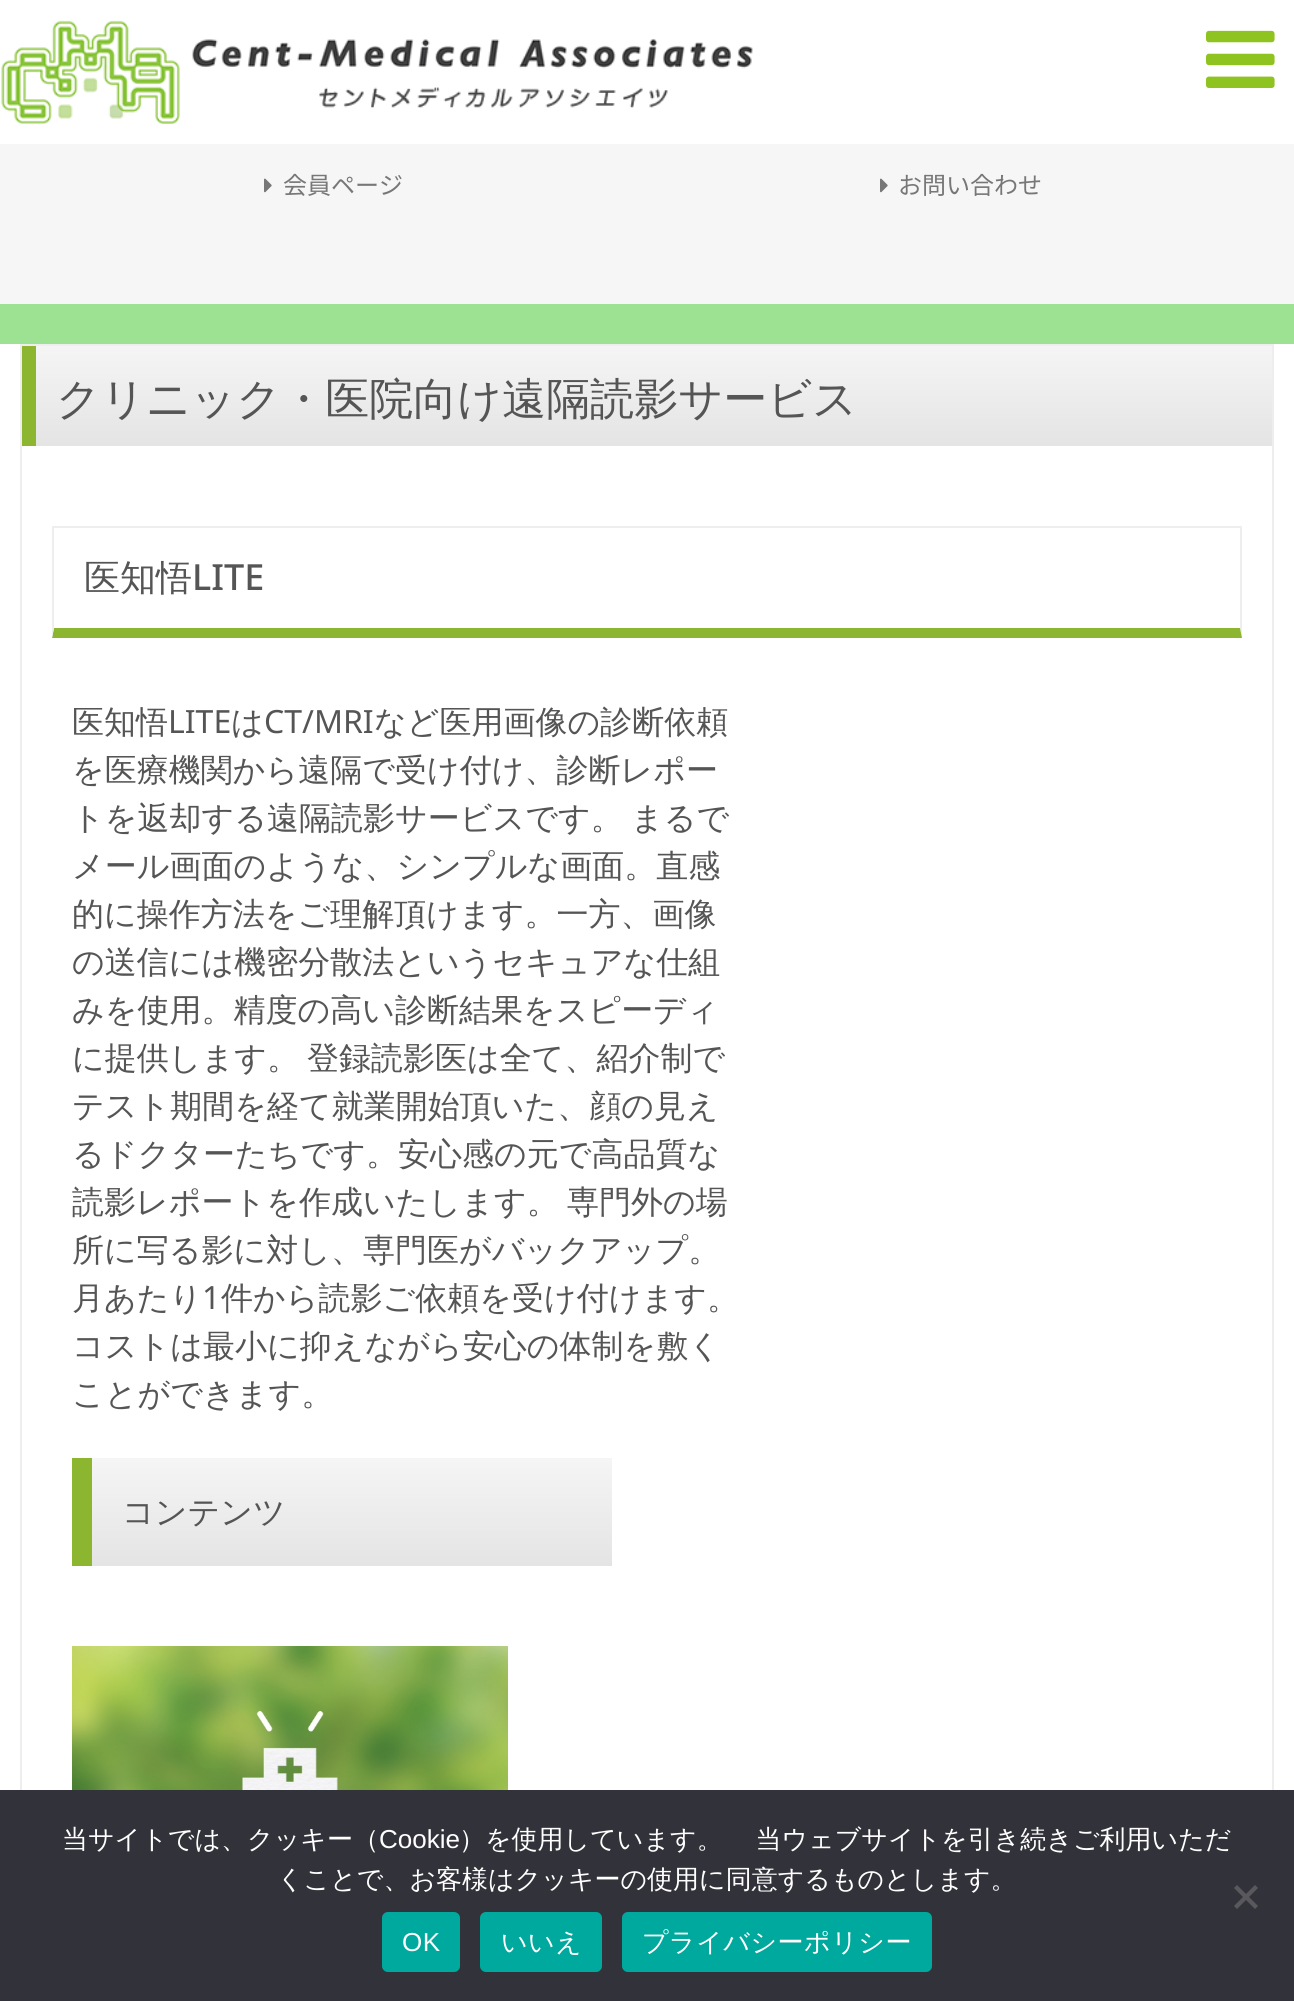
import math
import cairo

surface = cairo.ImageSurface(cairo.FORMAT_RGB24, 1294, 2001)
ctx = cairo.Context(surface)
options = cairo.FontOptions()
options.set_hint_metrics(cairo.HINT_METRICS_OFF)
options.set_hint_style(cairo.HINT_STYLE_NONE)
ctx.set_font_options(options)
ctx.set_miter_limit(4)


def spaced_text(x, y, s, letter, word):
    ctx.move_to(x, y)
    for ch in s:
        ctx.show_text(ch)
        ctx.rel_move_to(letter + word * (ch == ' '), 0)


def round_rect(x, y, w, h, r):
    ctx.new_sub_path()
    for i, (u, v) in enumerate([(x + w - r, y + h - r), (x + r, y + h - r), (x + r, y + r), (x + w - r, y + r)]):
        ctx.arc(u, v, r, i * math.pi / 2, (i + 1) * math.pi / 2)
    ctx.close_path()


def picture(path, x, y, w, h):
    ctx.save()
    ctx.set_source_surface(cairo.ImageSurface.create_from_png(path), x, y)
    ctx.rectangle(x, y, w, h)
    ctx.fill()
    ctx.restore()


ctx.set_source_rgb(1, 1, 1)
ctx.paint()
picture("img1.png", 1, 20, 752, 104)
picture("img2.png", 1206, 30, 69, 58)
ctx.set_source_rgb(0.961, 0.961, 0.961)
ctx.rectangle(0, 144, 1294, 160)
ctx.fill()
picture("img3.png", 264, 178, 8, 15)
ctx.select_font_face("Noto Sans JP")
ctx.set_font_size(24)
ctx.set_source_rgb(0.467, 0.467, 0.467)
ctx.move_to(283, 194)
ctx.show_text("会員ページ")
picture("img3.png", 880, 178, 8, 15)
ctx.move_to(898, 194)
ctx.show_text("お問い合わせ")
ctx.set_source_rgb(0.616, 0.886, 0.576)
ctx.rectangle(0, 304, 1294, 40)
ctx.fill()
ctx.rectangle(21, 345, 1252, 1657)
ctx.set_source_rgb(0.933, 0.933, 0.933)
ctx.stroke()
gradient = cairo.LinearGradient(654, 346, 654, 446)
gradient.add_color_stop_rgba(0, 0.961, 0.961, 0.961, 1)
gradient.add_color_stop_rgba(1, 0.894, 0.894, 0.894, 1)
ctx.set_source(gradient)
ctx.rectangle(36, 346, 1236, 100)
ctx.fill()
ctx.set_source_rgb(0.553, 0.714, 0.188)
ctx.rectangle(22, 346, 14, 100)
ctx.fill()
ctx.select_font_face("WenQuanYi Zen Hei Medium")
ctx.set_font_size(44)
ctx.set_source_rgb(0.333, 0.333, 0.333)
ctx.move_to(56, 414)
ctx.show_text("クリニック・医院向け遠隔読影サービス")
ctx.set_source_rgb(0.933, 0.933, 0.933)
ctx.rectangle(52, 526, 1190, 2)
ctx.fill()
ctx.new_path()
ctx.move_to(1242, 526)
ctx.line_to(1242, 638)
ctx.line_to(1240, 628)
ctx.line_to(1240, 528)
ctx.close_path()
ctx.fill()
ctx.set_source_rgb(0.553, 0.714, 0.188)
ctx.new_path()
ctx.move_to(1242, 638)
ctx.line_to(52, 638)
ctx.line_to(54, 628)
ctx.line_to(1240, 628)
ctx.close_path()
ctx.fill()
ctx.set_source_rgb(0.933, 0.933, 0.933)
ctx.new_path()
ctx.move_to(52, 638)
ctx.line_to(52, 526)
ctx.line_to(54, 528)
ctx.line_to(54, 628)
ctx.close_path()
ctx.fill()
ctx.set_font_size(36)
ctx.set_source_rgb(0.333, 0.333, 0.333)
ctx.move_to(84, 590)
ctx.show_text("医知悟")
ctx.select_font_face("Noto Sans Medium")
ctx.move_to(192, 590)
ctx.show_text("LITE")
ctx.select_font_face("WenQuanYi Zen Hei Medium")
ctx.set_font_size(32)
ctx.move_to(72, 733)
ctx.show_text("医知悟")
ctx.select_font_face("Noto Sans")
ctx.move_to(168, 733)
ctx.show_text("LITE")
ctx.select_font_face("WenQuanYi Zen Hei Medium")
ctx.move_to(231, 733)
ctx.show_text("は")
ctx.select_font_face("Noto Sans")
ctx.move_to(264, 733)
ctx.show_text("CT/MRI")
ctx.select_font_face("WenQuanYi Zen Hei Medium")
ctx.move_to(374, 733)
ctx.show_text("など医用画像の診断依頼")
ctx.move_to(72, 781)
ctx.show_text("を医療機関から遠隔で受け付け、診断レポー")
ctx.move_to(72, 829)
ctx.show_text("トを返却する遠隔読影サービスです。")
ctx.move_to(631, 829)
ctx.show_text("まるで")
ctx.move_to(72, 877)
ctx.show_text("メール画面のような、シンプルな画面。直感")
ctx.move_to(72, 925)
ctx.show_text("的に操作方法をご理解頂けます。一方、画像")
ctx.move_to(72, 973)
ctx.show_text("の送信には機密分散法というセキュアな仕組")
ctx.move_to(72, 1021)
ctx.show_text("みを使用。精度の高い診断結果をスピーディ")
ctx.move_to(72, 1069)
ctx.show_text("に提供します。")
ctx.move_to(307, 1069)
ctx.show_text("登録読影医は全て、紹介制で")
ctx.move_to(72, 1117)
ctx.show_text("テスト期間を経て就業開始頂いた、顔の見え")
ctx.move_to(72, 1165)
ctx.show_text("るドクターたちです。安心感の元で高品質な")
ctx.move_to(72, 1213)
ctx.show_text("読影レポートを作成いたします。")
ctx.move_to(567, 1213)
ctx.show_text("専門外の場")
ctx.move_to(72, 1261)
ctx.show_text("所に写る影に対し、専門医がバックアップ。")
ctx.move_to(72, 1309)
ctx.show_text("月あたり")
ctx.select_font_face("Noto Sans")
ctx.move_to(202, 1309)
ctx.show_text("1")
ctx.select_font_face("WenQuanYi Zen Hei Medium")
ctx.move_to(221, 1309)
ctx.show_text("件から読影ご依頼を受け付けます。")
ctx.move_to(72, 1357)
ctx.show_text("コストは最小に抑えながら安心の体制を敷く")
ctx.move_to(72, 1405)
ctx.show_text("ことができます。")
gradient = cairo.LinearGradient(352, 1458, 352, 1566)
gradient.add_color_stop_rgba(0, 0.961, 0.961, 0.961, 1)
gradient.add_color_stop_rgba(1, 0.894, 0.894, 0.894, 1)
ctx.set_source(gradient)
ctx.rectangle(92, 1458, 520, 108)
ctx.fill()
ctx.set_source_rgb(0.553, 0.714, 0.188)
ctx.rectangle(72, 1458, 20, 108)
ctx.fill()
ctx.set_source_rgb(0.333, 0.333, 0.333)
ctx.move_to(122, 1523)
ctx.show_text("コンテンツ")
picture("img4.png", 72, 1646, 436, 144)
ctx.set_source_rgb(0.196, 0.196, 0.227)
ctx.rectangle(0, 1790, 1294, 211)
ctx.fill()
ctx.set_font_size(26)
ctx.set_source_rgb(1, 1, 1)
ctx.move_to(62, 1848)
ctx.show_text("当サイトでは、クッキー（")
ctx.select_font_face("Liberation Sans")
ctx.move_to(379, 1848)
ctx.show_text("Cookie")
ctx.select_font_face("WenQuanYi Zen Hei Medium")
spaced_text(459, 1848, "）を使用しています。　 当ウェブサイトを引き続きご利用いただ", 0, -1)
ctx.move_to(277, 1888)
ctx.show_text("くことで、お客様はクッキーの使用に同意するものとします。")
ctx.set_source_rgb(0.349, 0.349, 0.365)
ctx.new_path()
ctx.move_to(1255, 1885)
ctx.line_to(1258, 1888)
ctx.line_to(1237, 1909)
ctx.line_to(1234, 1906)
ctx.close_path()
ctx.fill()
ctx.new_path()
ctx.move_to(1234, 1888)
ctx.line_to(1237, 1885)
ctx.line_to(1258, 1906)
ctx.line_to(1255, 1909)
ctx.close_path()
ctx.fill()
ctx.set_source_rgb(0, 0.663, 0.616)
round_rect(382, 1912, 78, 60, 6)
ctx.fill()
ctx.select_font_face("Liberation Sans")
ctx.set_source_rgb(1, 1, 1)
spaced_text(402, 1951, "OK", 0.5, 0)
ctx.set_source_rgb(0, 0.663, 0.616)
round_rect(480, 1912, 122, 60, 6)
ctx.fill()
ctx.select_font_face("WenQuanYi Zen Hei Medium")
ctx.set_source_rgb(1, 1, 1)
spaced_text(501, 1951, "いいえ", 0.5, 0)
ctx.set_source_rgb(0, 0.663, 0.616)
round_rect(622, 1912, 310, 60, 6)
ctx.fill()
ctx.set_source_rgb(1, 1, 1)
spaced_text(642, 1951, "プライバシーポリシー", 0.5, 0)
surface.write_to_png("page.png")
